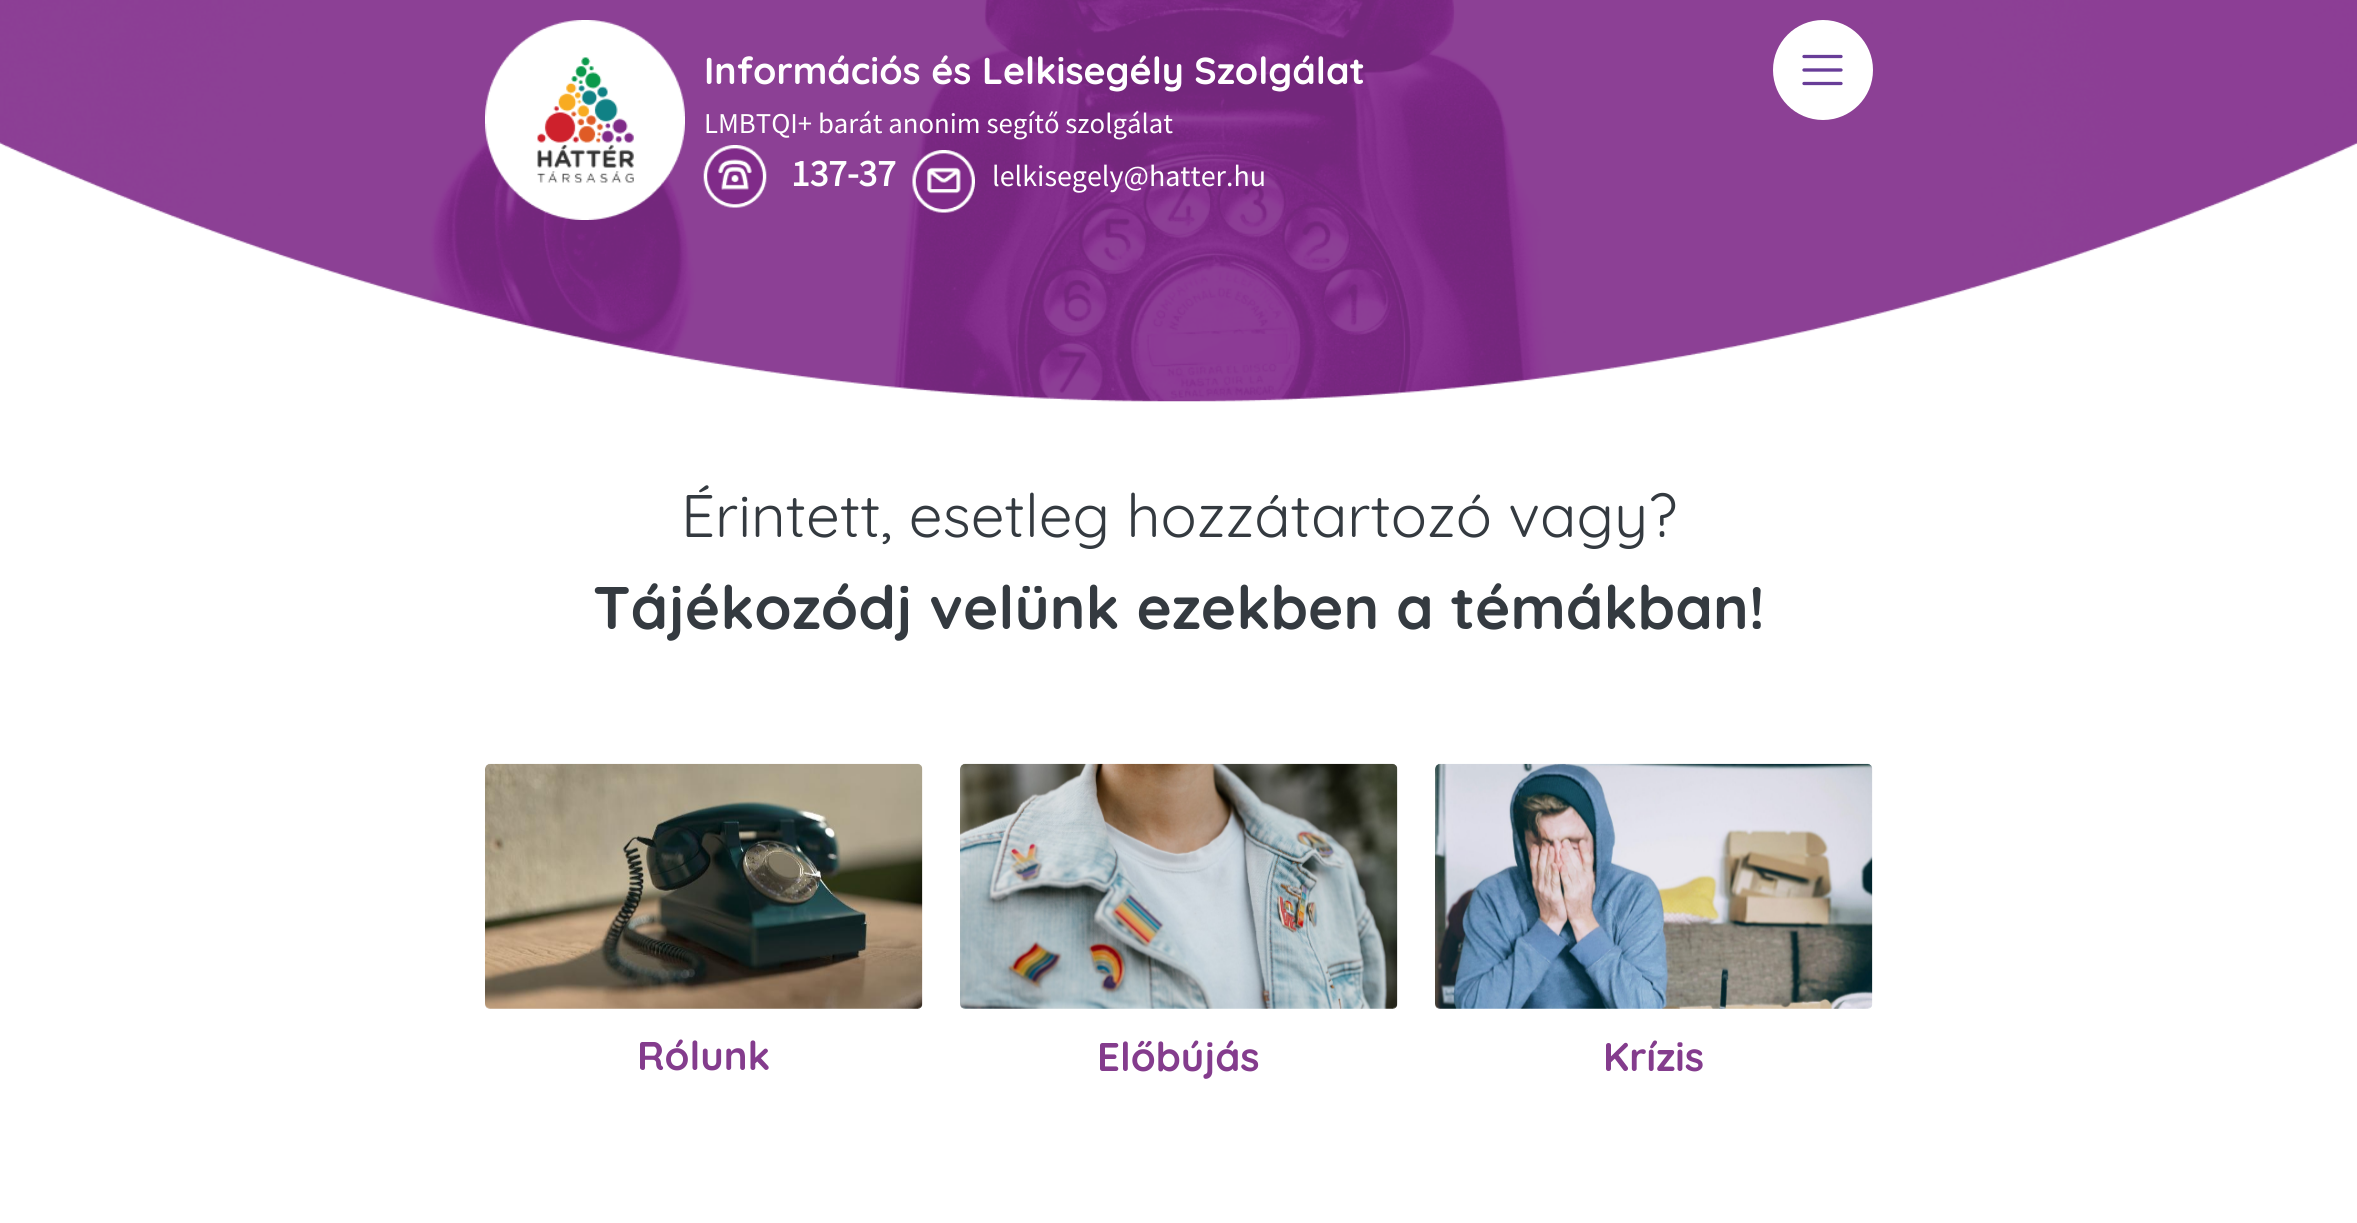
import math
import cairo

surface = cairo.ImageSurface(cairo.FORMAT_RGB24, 2357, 1223)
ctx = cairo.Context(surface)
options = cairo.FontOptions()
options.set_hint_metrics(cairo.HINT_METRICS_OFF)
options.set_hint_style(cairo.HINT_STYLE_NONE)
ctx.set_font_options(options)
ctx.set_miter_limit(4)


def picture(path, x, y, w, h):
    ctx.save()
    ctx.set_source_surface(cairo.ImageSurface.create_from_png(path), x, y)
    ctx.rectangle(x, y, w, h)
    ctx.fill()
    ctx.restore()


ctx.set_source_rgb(1, 1, 1)
ctx.paint()
picture("img1.png", 0, 0, 2357, 402)
picture("img2.png", 485, 20, 200, 200)
ctx.set_source_rgb(1, 1, 1)
ctx.arc(1823, 70, 50, 0, 2 * math.pi)
ctx.fill()
ctx.new_path()
ctx.move_to(1804, 56.5)
ctx.line_to(1841, 56.5)
ctx.move_to(1804, 70)
ctx.line_to(1841, 70)
ctx.move_to(1804, 83.5)
ctx.line_to(1841, 83.5)
ctx.set_source_rgb(0.408, 0.239, 0.596)
ctx.set_line_width(3.3)
ctx.set_line_cap(cairo.LINE_CAP_ROUND)
ctx.stroke()
ctx.select_font_face("Quicksand", cairo.FONT_SLANT_NORMAL, cairo.FONT_WEIGHT_BOLD)
ctx.set_font_size(37.5)
ctx.set_source_rgb(1, 1, 1)
ctx.move_to(704, 84)
ctx.show_text("Információs és Lelkisegély Szolgálat")
ctx.select_font_face("Source Sans Pro")
ctx.set_font_size(28.75)
ctx.move_to(704, 133)
ctx.show_text("LMBTQI+ barát anonim segítő szolgálat")
picture("img3.png", 703, 145, 64, 63)
ctx.select_font_face("Source Sans Pro", cairo.FONT_SLANT_NORMAL, cairo.FONT_WEIGHT_BOLD)
ctx.set_font_size(37.5)
ctx.move_to(791, 186)
ctx.show_text("137-37")
picture("img4.png", 912, 150, 63, 63)
ctx.select_font_face("Source Sans Pro")
ctx.set_font_size(30)
ctx.move_to(992, 186)
ctx.show_text("lelkisegely@hatter.hu")
ctx.select_font_face("Quicksand")
ctx.set_font_size(60)
ctx.set_source_rgb(0.204, 0.227, 0.251)
ctx.move_to(681, 537)
ctx.show_text("Érintett, esetleg hozzátartozó vagy?")
ctx.select_font_face("Quicksand", cairo.FONT_SLANT_NORMAL, cairo.FONT_WEIGHT_BOLD)
ctx.move_to(593, 629)
ctx.show_text("Tájékozódj velünk ezekben a témákban!")
picture("img5.png", 485, 763, 438, 246)
ctx.set_font_size(40)
ctx.set_source_rgb(0.518, 0.235, 0.553)
ctx.move_to(637, 1070)
ctx.show_text("Rólunk")
picture("img6.png", 960, 763, 438, 246)
ctx.move_to(1097, 1071)
ctx.show_text("Előbújás")
picture("img7.png", 1435, 763, 438, 246)
ctx.move_to(1603, 1071)
ctx.show_text("Krízis")
surface.write_to_png("page.png")
